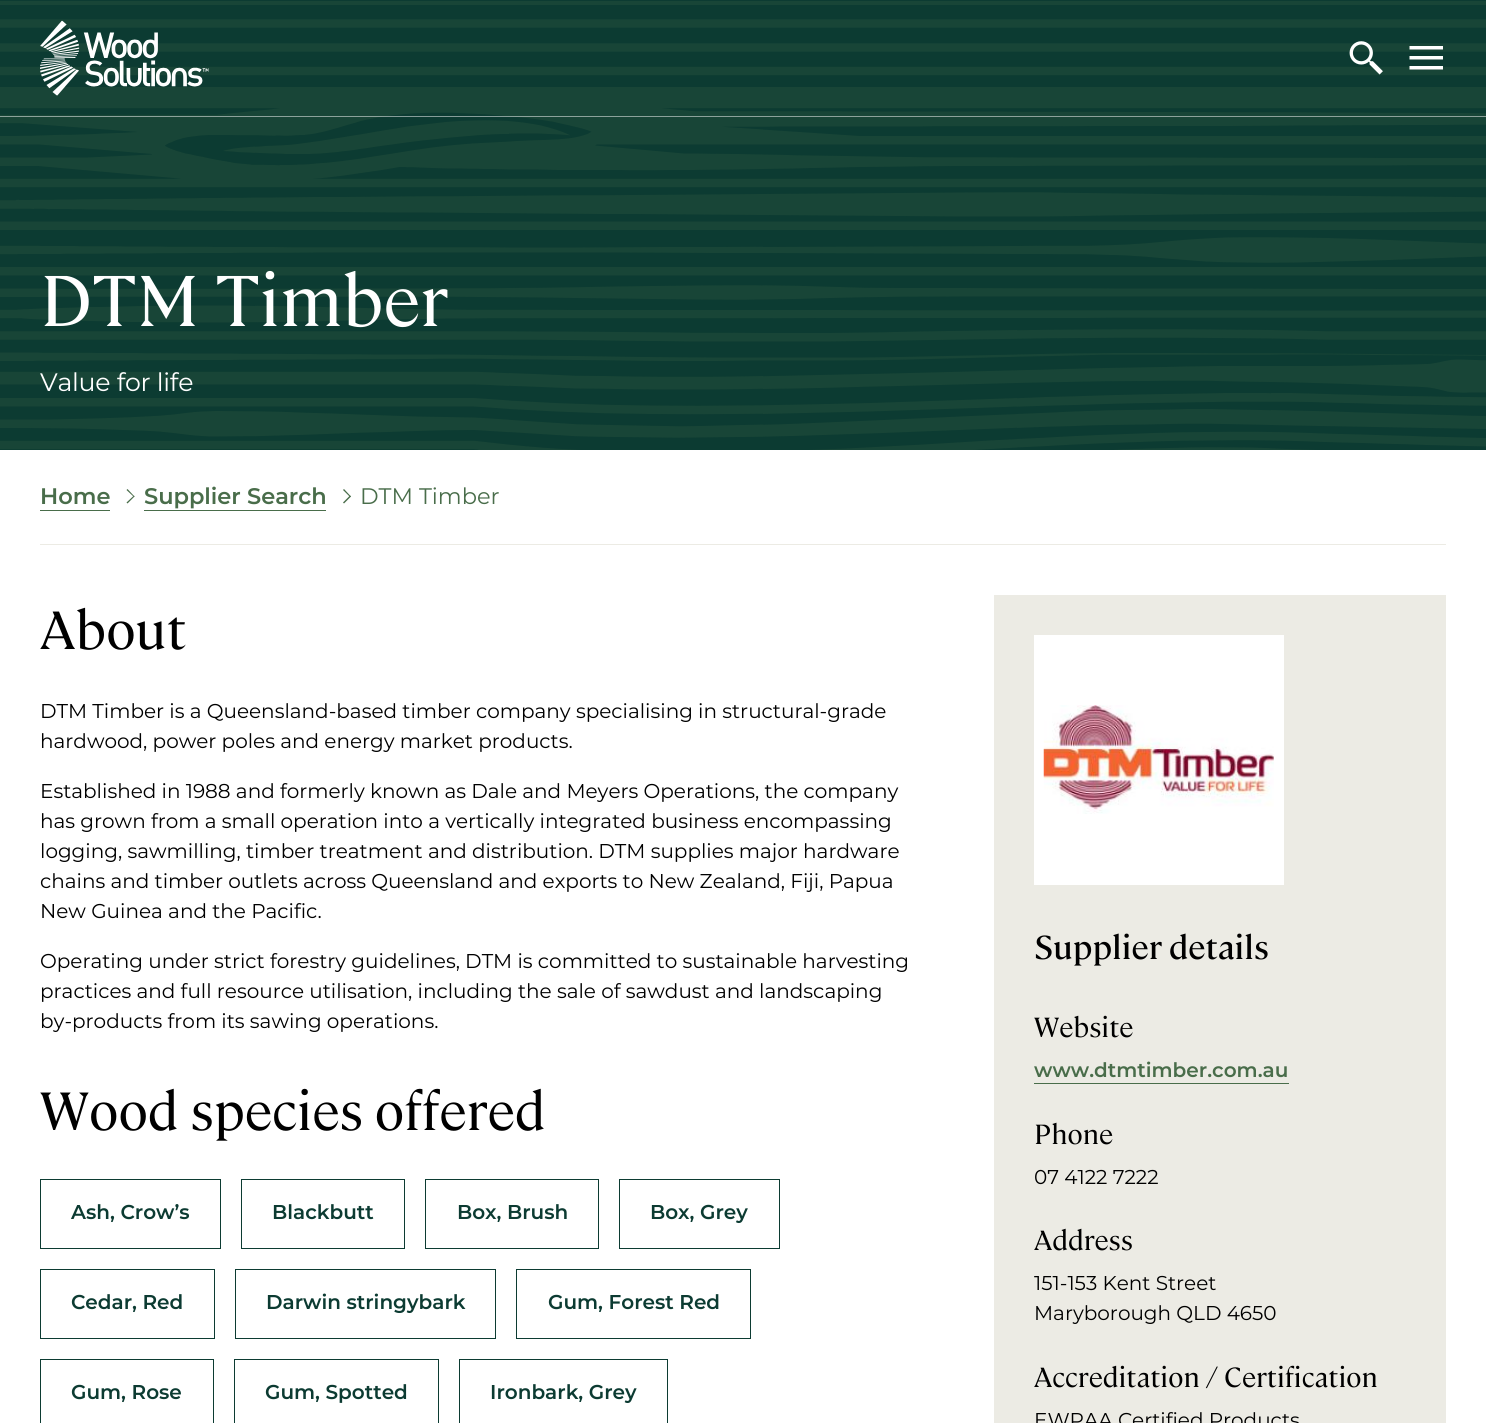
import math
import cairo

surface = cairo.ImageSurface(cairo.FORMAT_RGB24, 1486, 1423)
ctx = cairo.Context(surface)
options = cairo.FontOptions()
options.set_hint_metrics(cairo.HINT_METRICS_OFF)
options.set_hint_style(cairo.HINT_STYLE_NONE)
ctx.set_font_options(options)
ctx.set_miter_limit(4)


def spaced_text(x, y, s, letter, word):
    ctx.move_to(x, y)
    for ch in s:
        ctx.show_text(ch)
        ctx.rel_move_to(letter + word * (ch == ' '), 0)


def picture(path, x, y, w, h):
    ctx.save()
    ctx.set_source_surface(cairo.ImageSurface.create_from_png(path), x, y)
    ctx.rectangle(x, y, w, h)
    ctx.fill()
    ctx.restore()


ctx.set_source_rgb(1, 1, 1)
ctx.paint()
ctx.set_source_rgb(0.047, 0.231, 0.196)
ctx.rectangle(0, 0, 1486, 450)
ctx.fill()
picture("img3.png", 0, 1, 1486, 449)
ctx.set_source_rgba(1, 1, 1, 0.5)
ctx.rectangle(0, 116, 1486, 1)
ctx.fill()
picture("img1.png", 40, 20, 169, 76)
picture("img2.png", 1349, 41, 34, 34)
ctx.set_source_rgb(1, 1, 1)
ctx.new_path()
ctx.move_to(1409.5, 46)
ctx.line_to(1409.5, 49.5)
ctx.line_to(1443, 49.5)
ctx.line_to(1443, 46)
ctx.close_path()
ctx.move_to(1409.5, 56)
ctx.line_to(1409.5, 59.5)
ctx.line_to(1443, 59.5)
ctx.line_to(1443, 56)
ctx.close_path()
ctx.move_to(1409.5, 66)
ctx.line_to(1409.5, 69.5)
ctx.line_to(1443, 69.5)
ctx.line_to(1443, 66)
ctx.close_path()
ctx.fill()
ctx.select_font_face("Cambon")
ctx.set_font_size(71.5)
ctx.move_to(40, 326)
ctx.show_text("DTM Timber")
ctx.select_font_face("Montserrat")
ctx.set_font_size(25.25)
spaced_text(40, 391, "Value for life", -0.25, 0)
ctx.set_source_rgb(0.925, 0.918, 0.894)
ctx.rectangle(40, 544, 1406, 1)
ctx.fill()
ctx.select_font_face("Montserrat SemiBold")
ctx.set_font_size(22.5)
ctx.set_source_rgb(0.286, 0.427, 0.29)
ctx.move_to(40, 504)
ctx.show_text("Home")
ctx.rectangle(40, 510, 70, 1)
ctx.fill()
ctx.new_path()
ctx.move_to(127.5, 489)
ctx.line_to(134.5, 496.5)
ctx.line_to(134, 497)
ctx.line_to(126.5, 490)
ctx.close_path()
ctx.fill()
ctx.new_path()
ctx.move_to(134, 495.5)
ctx.line_to(134.5, 496.5)
ctx.line_to(127.5, 503.5)
ctx.line_to(126.5, 502.5)
ctx.close_path()
ctx.fill()
ctx.move_to(144, 504)
ctx.show_text("Supplier Search")
ctx.rectangle(144, 510, 182, 1)
ctx.fill()
ctx.new_path()
ctx.move_to(344, 489)
ctx.line_to(351, 496.5)
ctx.line_to(350, 497)
ctx.line_to(343, 490)
ctx.close_path()
ctx.fill()
ctx.new_path()
ctx.move_to(350, 495.5)
ctx.line_to(351, 496.5)
ctx.line_to(344, 503.5)
ctx.line_to(343, 502.5)
ctx.close_path()
ctx.fill()
ctx.select_font_face("Montserrat")
ctx.move_to(360, 504)
ctx.show_text("DTM Timber")
ctx.select_font_face("Cambon")
ctx.set_font_size(53.5)
ctx.set_source_rgb(0, 0, 0)
ctx.move_to(40, 649)
ctx.show_text("About")
ctx.select_font_face("Montserrat")
ctx.set_font_size(20)
ctx.move_to(40, 718)
ctx.show_text("DTM Timber is a Queensland-based timber company specialising in structural-grade")
ctx.move_to(40, 748)
ctx.show_text("hardwood, power poles and energy market products.")
ctx.move_to(40, 798)
ctx.show_text("Established in 1988 and formerly known as Dale and Meyers Operations, the company")
ctx.move_to(40, 828)
ctx.show_text("has grown from a small operation into a vertically integrated business encompassing")
ctx.move_to(40, 858)
ctx.show_text("logging, sawmilling, timber treatment and distribution. DTM supplies major hardware")
ctx.move_to(40, 888)
ctx.show_text("chains and timber outlets across Queensland and exports to New Zealand, Fiji, Papua")
ctx.move_to(40, 918)
ctx.show_text("New Guinea and the Pacific.")
ctx.move_to(40, 968)
ctx.show_text("Operating under strict forestry guidelines, DTM is committed to sustainable harvesting")
ctx.move_to(40, 998)
ctx.show_text("practices and full resource utilisation, including the sale of sawdust and landscaping")
ctx.move_to(40, 1028)
ctx.show_text("by-products from its sawing operations.")
ctx.select_font_face("Cambon")
ctx.set_font_size(53.5)
ctx.move_to(40, 1130)
ctx.show_text("Wood species offered")
ctx.rectangle(40.5, 1179.5, 180, 69)
ctx.set_source_rgb(0.047, 0.231, 0.196)
ctx.set_line_width(1)
ctx.stroke()
ctx.select_font_face("Montserrat SemiBold")
ctx.set_font_size(20)
ctx.move_to(71, 1219)
ctx.show_text("Ash, Crow’s")
ctx.rectangle(241.5, 1179.5, 163, 69)
ctx.stroke()
ctx.move_to(272, 1219)
ctx.show_text("Blackbutt")
ctx.rectangle(425.5, 1179.5, 173, 69)
ctx.stroke()
ctx.move_to(457, 1219)
ctx.show_text("Box, Brush")
ctx.rectangle(619.5, 1179.5, 160, 69)
ctx.stroke()
ctx.move_to(650, 1219)
ctx.show_text("Box, Grey")
ctx.rectangle(40.5, 1269.5, 174, 69)
ctx.stroke()
ctx.move_to(71, 1309)
ctx.show_text("Cedar, Red")
ctx.rectangle(235.5, 1269.5, 260, 69)
ctx.stroke()
ctx.move_to(266, 1309)
ctx.show_text("Darwin stringybark")
ctx.rectangle(516.5, 1269.5, 234, 69)
ctx.stroke()
ctx.move_to(548, 1309)
ctx.show_text("Gum, Forest Red")
ctx.rectangle(40.5, 1359.5, 173, 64)
ctx.stroke()
ctx.move_to(71, 1399)
ctx.show_text("Gum, Rose")
ctx.rectangle(234.5, 1359.5, 204, 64)
ctx.stroke()
ctx.move_to(265, 1399)
ctx.show_text("Gum, Spotted")
ctx.rectangle(459.5, 1359.5, 208, 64)
ctx.stroke()
ctx.move_to(490, 1399)
ctx.show_text("Ironbark, Grey")
ctx.set_source_rgb(0.925, 0.918, 0.894)
ctx.rectangle(994, 595, 452, 828)
ctx.fill()
ctx.set_source_rgb(1, 1, 1)
ctx.rectangle(1034, 635, 250, 250)
ctx.fill()
picture("img4.png", 1043, 705, 231, 109)
ctx.select_font_face("Cambon Medium")
ctx.set_font_size(33)
ctx.set_source_rgb(0, 0, 0)
ctx.move_to(1034, 959)
ctx.show_text("Supplier details")
ctx.select_font_face("Cambon")
ctx.set_font_size(27.6)
ctx.move_to(1034, 1037)
ctx.show_text("Website")
ctx.select_font_face("Montserrat SemiBold")
ctx.set_font_size(20)
ctx.set_source_rgb(0.286, 0.427, 0.29)
ctx.move_to(1034, 1077)
ctx.show_text("www.dtmtimber.com.au")
ctx.rectangle(1034, 1083, 255, 1)
ctx.fill()
ctx.select_font_face("Cambon")
ctx.set_font_size(27.6)
ctx.set_source_rgb(0, 0, 0)
ctx.move_to(1034, 1144)
ctx.show_text("Phone")
ctx.select_font_face("Montserrat")
ctx.set_font_size(20)
ctx.move_to(1034, 1184)
ctx.show_text("07 4122 7222")
ctx.select_font_face("Cambon")
ctx.set_font_size(27.6)
ctx.move_to(1034, 1250)
ctx.show_text("Address")
ctx.select_font_face("Montserrat")
ctx.set_font_size(20)
ctx.move_to(1034, 1290)
ctx.show_text("151-153 Kent Street")
ctx.move_to(1034, 1320)
ctx.show_text("Maryborough QLD 4650")
ctx.select_font_face("Cambon")
ctx.set_font_size(27.6)
ctx.move_to(1034, 1387)
ctx.show_text("Accreditation / Certification")
ctx.select_font_face("Montserrat")
ctx.set_font_size(20)
ctx.move_to(1034, 1427)
ctx.show_text("EWPAA Certified Products")
surface.write_to_png("page.png")
